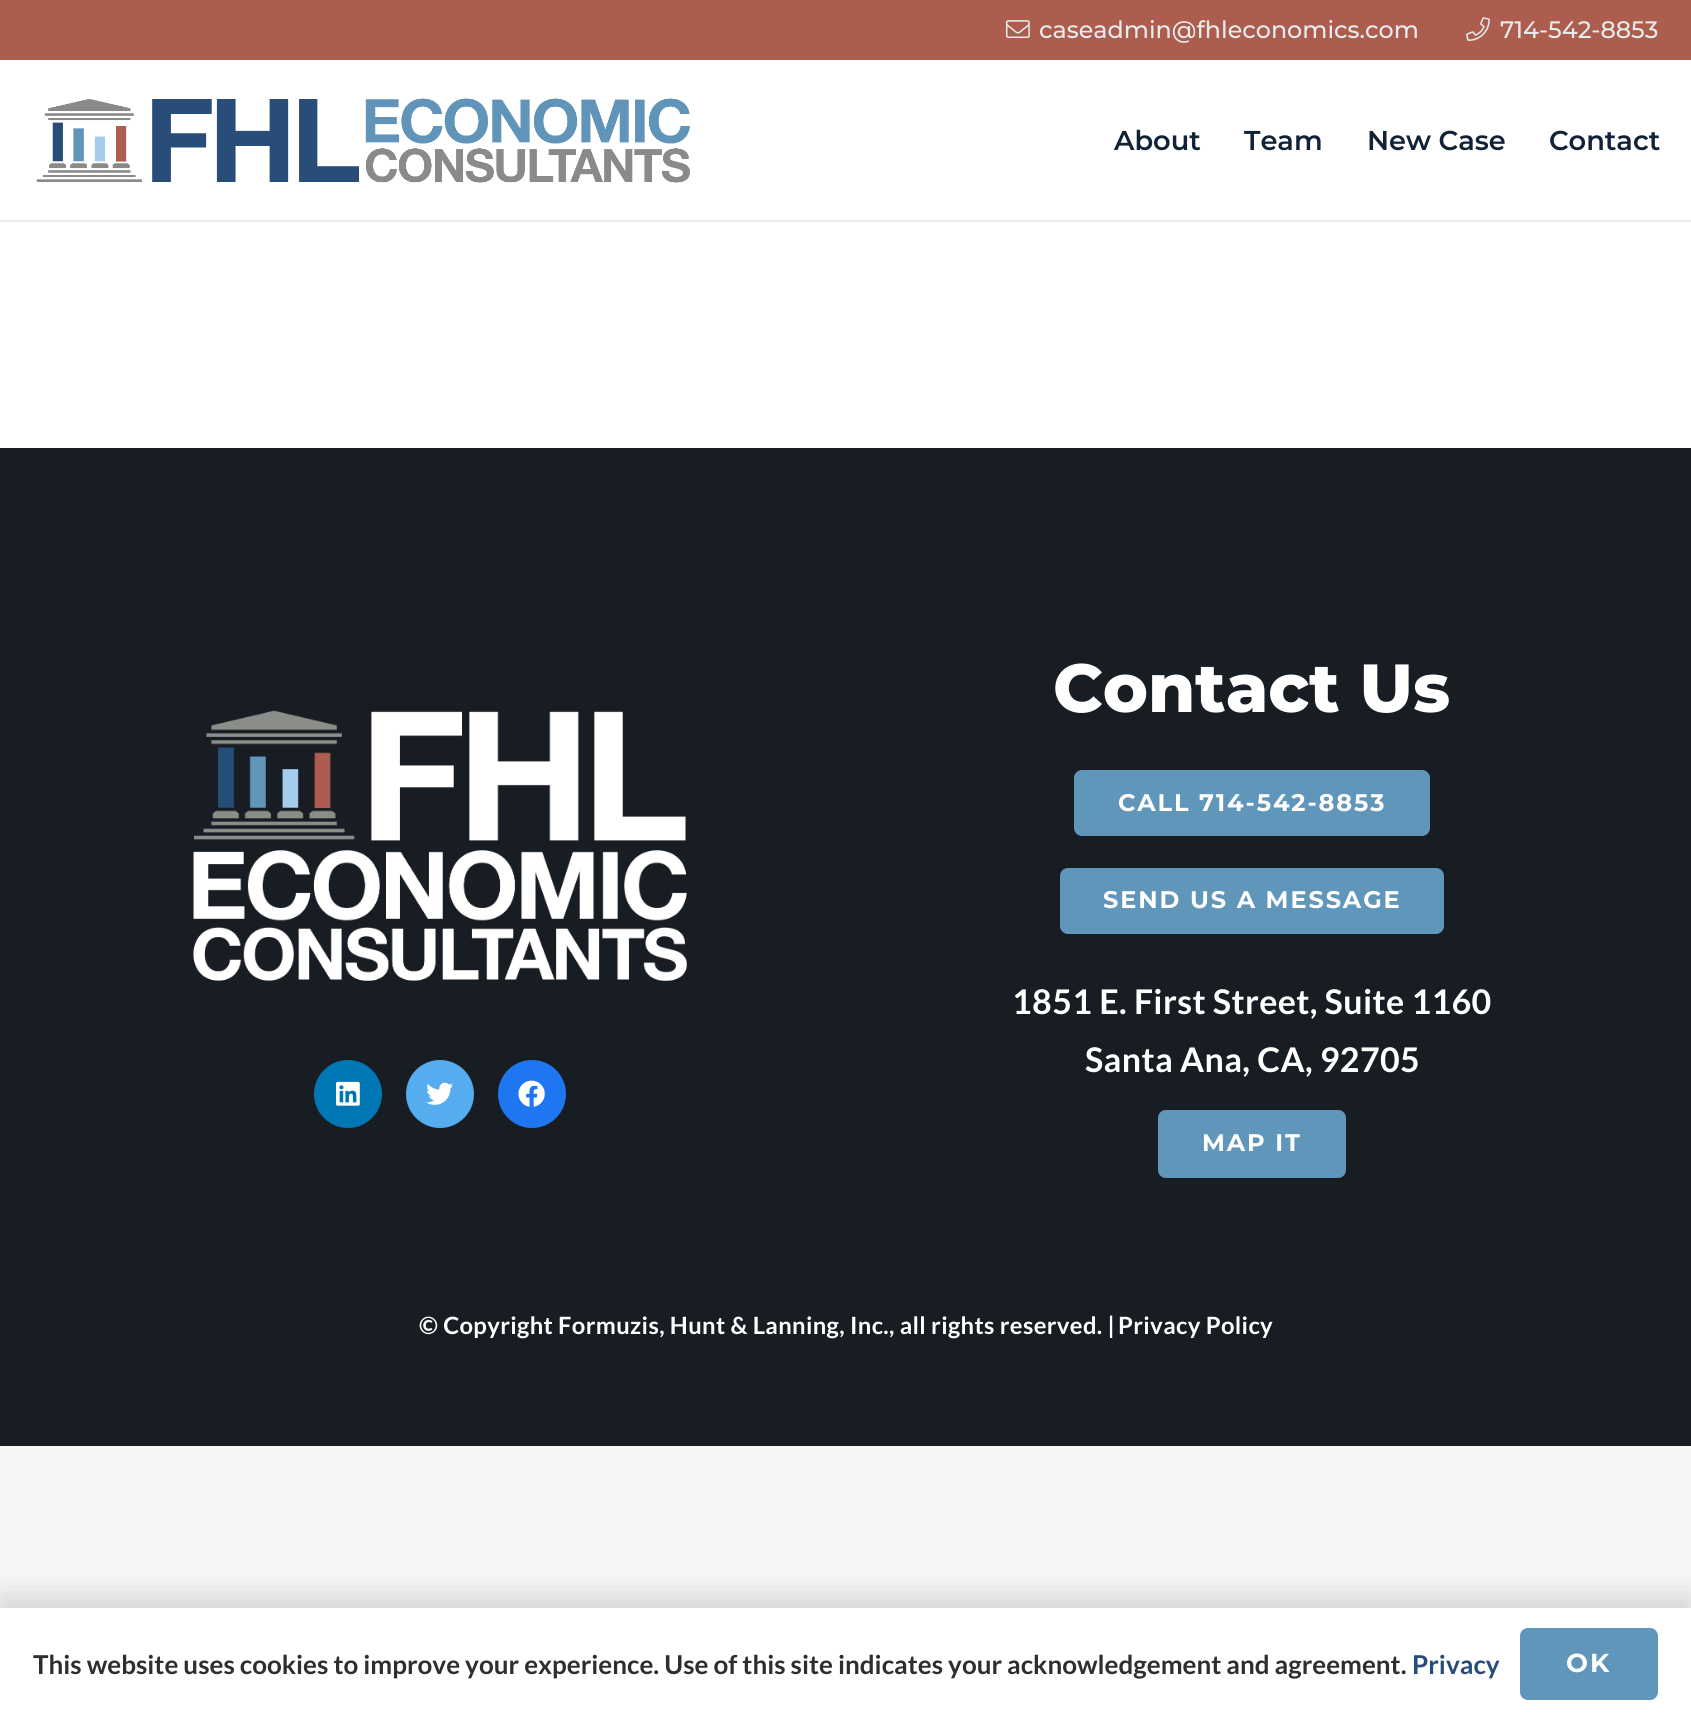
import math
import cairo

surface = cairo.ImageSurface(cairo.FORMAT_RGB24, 1691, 1719)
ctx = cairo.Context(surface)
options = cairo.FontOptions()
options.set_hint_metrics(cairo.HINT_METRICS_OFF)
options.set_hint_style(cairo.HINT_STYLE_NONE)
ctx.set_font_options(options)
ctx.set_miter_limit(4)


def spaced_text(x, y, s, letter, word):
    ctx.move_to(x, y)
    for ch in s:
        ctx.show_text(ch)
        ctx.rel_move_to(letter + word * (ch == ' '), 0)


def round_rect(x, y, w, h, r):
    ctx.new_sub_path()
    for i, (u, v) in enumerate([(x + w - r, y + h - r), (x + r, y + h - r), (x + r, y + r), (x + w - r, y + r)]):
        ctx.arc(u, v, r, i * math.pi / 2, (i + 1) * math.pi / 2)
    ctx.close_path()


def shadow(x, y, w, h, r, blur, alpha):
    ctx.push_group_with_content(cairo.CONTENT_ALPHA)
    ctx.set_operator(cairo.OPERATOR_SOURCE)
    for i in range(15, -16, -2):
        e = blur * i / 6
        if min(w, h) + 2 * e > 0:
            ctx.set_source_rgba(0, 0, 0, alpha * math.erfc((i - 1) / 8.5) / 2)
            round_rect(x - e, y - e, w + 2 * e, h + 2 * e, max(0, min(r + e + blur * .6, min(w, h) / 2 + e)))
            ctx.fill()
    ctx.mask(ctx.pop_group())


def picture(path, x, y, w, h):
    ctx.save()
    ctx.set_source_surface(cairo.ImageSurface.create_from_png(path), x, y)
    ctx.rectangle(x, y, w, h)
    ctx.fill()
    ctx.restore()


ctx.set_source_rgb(0.961, 0.961, 0.961)
ctx.paint()
ctx.set_source_rgb(1, 1, 1)
ctx.rectangle(0, 60, 1691, 388)
ctx.fill()
ctx.set_source_rgb(0.678, 0.365, 0.306)
ctx.rectangle(0, 0, 1691, 60)
ctx.fill()
picture("img1.png", 1006, 20, 24, 18)
ctx.select_font_face("Montserrat Medium")
ctx.set_font_size(23.8)
ctx.set_source_rgb(0.906, 0.925, 0.937)
ctx.move_to(1039, 38)
ctx.show_text("caseadmin@fhleconomics.com")
picture("img2.png", 1466, 17, 24, 24)
ctx.move_to(1500, 38)
ctx.show_text("714-542-8853")
ctx.set_source_rgb(0.922, 0.922, 0.922)
ctx.rectangle(0, 220, 1691, 2)
ctx.fill()
picture("img3.png", 36, 98, 654, 85)
ctx.select_font_face("Montserrat SemiBold")
ctx.set_font_size(27.25)
ctx.set_source_rgb(0.071, 0.133, 0.212)
ctx.move_to(1114, 150)
ctx.show_text("About")
ctx.move_to(1244, 150)
ctx.show_text("Team")
ctx.move_to(1367, 150)
ctx.show_text("New Case")
ctx.move_to(1549, 150)
ctx.show_text("Contact")
ctx.set_source_rgb(0.094, 0.11, 0.137)
ctx.rectangle(0, 448, 1691, 998)
ctx.fill()
picture("img4.png", 193, 710, 494, 271)
ctx.set_source_rgb(0, 0.467, 0.71)
ctx.arc(348, 1094, 34, 0, 2 * math.pi)
ctx.fill()
picture("img5.png", 336, 1081, 24, 25)
ctx.set_source_rgb(0.333, 0.675, 0.933)
ctx.arc(440, 1094, 34, 0, 2 * math.pi)
ctx.fill()
picture("img6.png", 426, 1082, 27, 23)
ctx.set_source_rgb(0.118, 0.467, 0.941)
ctx.arc(532, 1094, 34, 0, 2 * math.pi)
ctx.fill()
picture("img7.png", 518, 1080, 27, 27)
ctx.select_font_face("Montserrat ExtraBold")
ctx.set_font_size(68)
ctx.set_source_rgb(1, 1, 1)
ctx.move_to(1053, 712)
ctx.show_text("Contact Us")
ctx.set_source_rgb(0.376, 0.588, 0.729)
round_rect(1074, 770, 356, 66, 8)
ctx.fill()
ctx.select_font_face("Montserrat", cairo.FONT_SLANT_NORMAL, cairo.FONT_WEIGHT_BOLD)
ctx.set_font_size(24)
ctx.set_source_rgb(1, 1, 1)
spaced_text(1118, 811, "CALL 714-542-8853", 1.9, 0)
ctx.set_source_rgb(0.376, 0.588, 0.729)
round_rect(1060, 868, 384, 66, 8)
ctx.fill()
ctx.set_source_rgb(1, 1, 1)
spaced_text(1103, 908, "SEND US A MESSAGE", 1.9, 0)
ctx.select_font_face("Lato", cairo.FONT_SLANT_NORMAL, cairo.FONT_WEIGHT_BOLD)
ctx.set_font_size(34)
spaced_text(1012, 1014, "1851 E. First Street, Suite 1160", 0.35, 0)
spaced_text(1085, 1072, "Santa Ana, CA, 92705", 0.35, 0)
ctx.set_source_rgb(0.376, 0.588, 0.729)
round_rect(1158, 1110, 188, 68, 8)
ctx.fill()
ctx.select_font_face("Montserrat", cairo.FONT_SLANT_NORMAL, cairo.FONT_WEIGHT_BOLD)
ctx.set_font_size(24)
ctx.set_source_rgb(1, 1, 1)
spaced_text(1202, 1151, "MAP IT", 1.9, 0)
ctx.select_font_face("Lato", cairo.FONT_SLANT_NORMAL, cairo.FONT_WEIGHT_BOLD)
ctx.set_font_size(23.8)
spaced_text(419, 1334, "© Copyright Formuzis, Hunt & Lanning, Inc., all rights reserved. |", 0.35, 0)
spaced_text(1118, 1334, "Privacy Policy", 0.35, 0)
ctx.set_source_rgb(0, 0, 0)
shadow(0, 1598, 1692, 112, 0, 15, 0.15)
ctx.set_source_rgb(1, 1, 1)
ctx.rectangle(0, 1608, 1691, 111)
ctx.fill()
ctx.set_font_size(26)
ctx.set_source_rgb(0.18, 0.18, 0.18)
ctx.move_to(33, 1674)
ctx.show_text("This website uses cookies to improve your experience. Use of this site indicates your acknowledgement and agreement.")
ctx.set_source_rgb(0.153, 0.298, 0.467)
ctx.move_to(1412, 1674)
ctx.show_text("Privacy")
ctx.set_source_rgb(0.376, 0.588, 0.729)
round_rect(1520, 1628, 138, 72, 8)
ctx.fill()
ctx.select_font_face("Montserrat", cairo.FONT_SLANT_NORMAL, cairo.FONT_WEIGHT_BOLD)
ctx.set_source_rgb(1, 1, 1)
spaced_text(1566, 1672, "OK", 2, 0)
surface.write_to_png("page.png")
